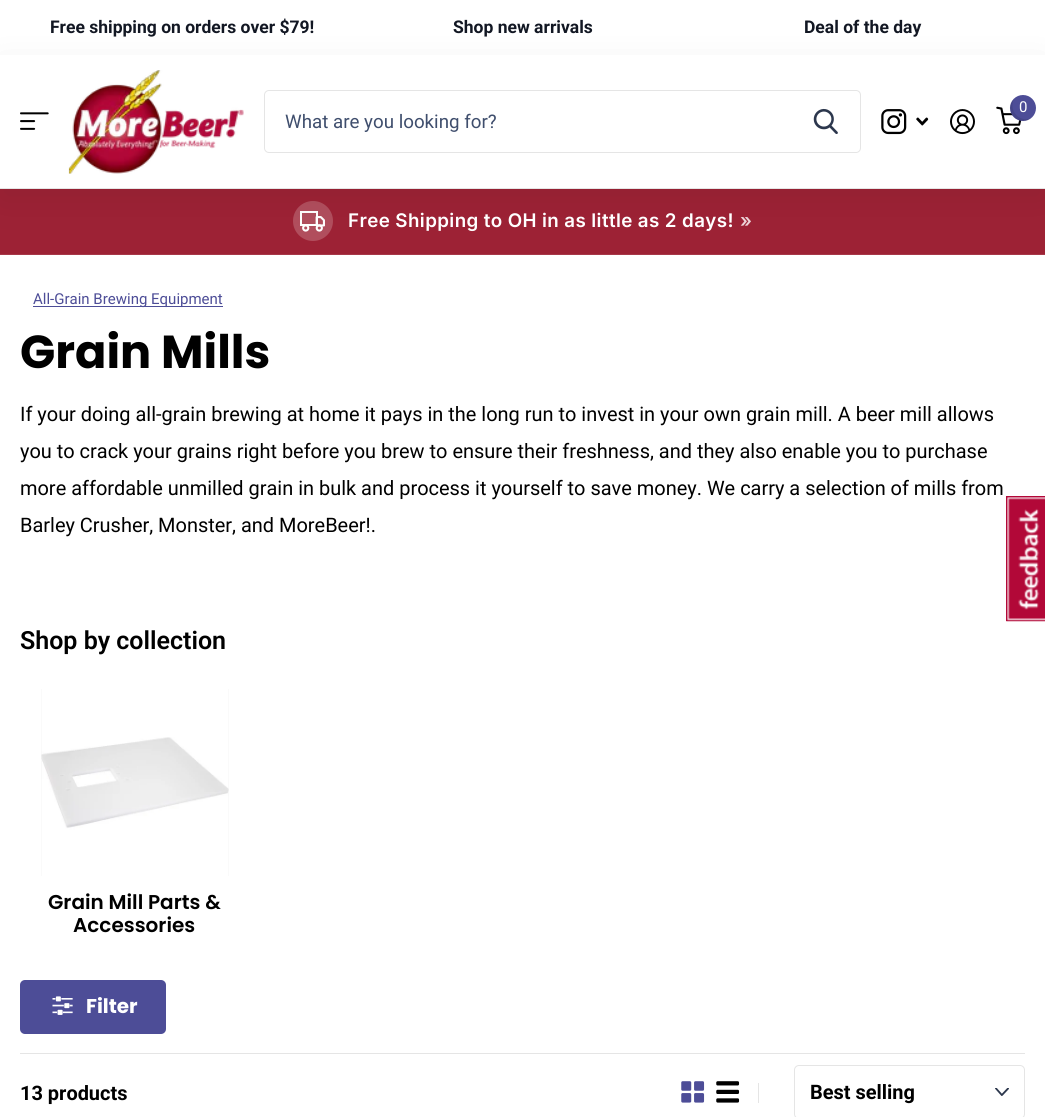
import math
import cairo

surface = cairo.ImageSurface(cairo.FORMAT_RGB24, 1045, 1117)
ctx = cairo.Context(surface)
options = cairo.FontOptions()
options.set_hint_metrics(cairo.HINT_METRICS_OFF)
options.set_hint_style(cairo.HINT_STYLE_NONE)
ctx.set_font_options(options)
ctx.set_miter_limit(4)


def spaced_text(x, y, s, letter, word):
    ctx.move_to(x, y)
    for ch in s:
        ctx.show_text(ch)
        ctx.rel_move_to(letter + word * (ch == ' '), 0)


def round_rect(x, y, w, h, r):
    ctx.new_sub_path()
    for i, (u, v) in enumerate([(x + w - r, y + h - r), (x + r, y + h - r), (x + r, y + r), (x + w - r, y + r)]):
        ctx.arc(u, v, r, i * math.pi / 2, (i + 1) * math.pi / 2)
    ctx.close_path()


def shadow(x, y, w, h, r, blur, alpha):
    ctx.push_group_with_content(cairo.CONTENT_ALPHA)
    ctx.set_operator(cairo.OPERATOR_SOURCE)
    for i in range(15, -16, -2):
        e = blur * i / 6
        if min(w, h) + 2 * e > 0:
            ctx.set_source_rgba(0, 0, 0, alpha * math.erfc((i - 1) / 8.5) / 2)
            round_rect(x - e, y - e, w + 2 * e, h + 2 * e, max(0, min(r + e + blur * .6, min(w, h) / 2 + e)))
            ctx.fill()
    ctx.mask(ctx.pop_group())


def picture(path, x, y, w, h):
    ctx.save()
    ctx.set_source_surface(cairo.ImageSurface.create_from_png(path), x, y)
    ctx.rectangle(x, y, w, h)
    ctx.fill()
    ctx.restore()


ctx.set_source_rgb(1, 1, 1)
ctx.paint()
ctx.select_font_face("Roboto", cairo.FONT_SLANT_NORMAL, cairo.FONT_WEIGHT_BOLD)
ctx.set_font_size(17.5)
ctx.set_source_rgb(0.071, 0.09, 0.137)
ctx.move_to(50, 33)
ctx.show_text("Free shipping on orders over $79!")
ctx.move_to(453, 33)
ctx.show_text("Shop new arrivals")
ctx.move_to(804, 33)
ctx.show_text("Deal of the day")
ctx.set_source_rgb(0.616, 0.133, 0.208)
ctx.rectangle(0, 189, 1045, 65)
ctx.fill()
ctx.set_source_rgb(0.655, 0.22, 0.286)
ctx.rectangle(0, 254, 1045, 1)
ctx.fill()
ctx.set_source_rgb(0.694, 0.306, 0.365)
ctx.arc(313, 221, 20, 0, 2 * math.pi)
ctx.fill()
picture("img8.png", 300, 211, 25, 21)
ctx.set_source_rgb(0, 0, 0)
shadow(0, 66, 1045, 134, 0, 20, 0.07)
ctx.set_source_rgb(1, 1, 1)
ctx.rectangle(0, 55, 1045, 133)
ctx.fill()
ctx.set_source_rgb(0.898, 0.898, 0.898)
ctx.rectangle(0, 188, 1045, 1)
ctx.fill()
picture("img1.png", 68, 70, 176, 104)
picture("img2.png", 996, 106, 26, 29)
ctx.set_source_rgb(0.302, 0.302, 0.592)
ctx.arc(1023, 108, 13, 0, 2 * math.pi)
ctx.fill()
ctx.set_source_rgba(0, 0, 0, 0.1)
ctx.new_path()
ctx.move_to(1031.5, 118)
ctx.curve_to(1019.5, 123.5, 1007.5, 110, 1014.5, 98)
ctx.curve_to(1001.5, 109.5, 1018.5, 129, 1031.5, 118)
ctx.close_path()
ctx.fill()
ctx.select_font_face("Roboto")
ctx.set_font_size(15)
ctx.set_source_rgb(1, 1, 1)
ctx.move_to(1019, 112)
ctx.show_text("0")
picture("img3.png", 881, 109, 26, 26)
picture("img4.png", 916, 117, 13, 9)
picture("img5.png", 950, 109, 25, 26)
picture("img6.png", 20, 112, 29, 18)
round_rect(264.5, 90.5, 596, 62, 4.5)
ctx.set_source_rgb(0.898, 0.898, 0.898)
ctx.set_line_width(1)
ctx.stroke()
ctx.set_font_size(18.75)
ctx.set_source_rgb(0.247, 0.306, 0.427)
ctx.move_to(285, 128)
ctx.show_text("What are you looking for?")
picture("img7.png", 813, 108, 25, 26)
ctx.select_font_face("Inter SemiBold")
ctx.set_source_rgb(1, 1, 1)
spaced_text(348, 227, "Free Shipping to OH in as little as 2 days!", 0.4, 0)
ctx.set_source_rgb(0.922, 0.827, 0.843)
spaced_text(740, 227, "»", 0.4, 0)
ctx.set_source_rgb(0.302, 0.302, 0.592)
ctx.rectangle(33, 306, 190, 1)
ctx.fill()
ctx.select_font_face("Roboto")
ctx.set_font_size(15)
ctx.move_to(33, 304)
ctx.show_text("All-Grain Brewing Equipment")
ctx.select_font_face("Poppins", cairo.FONT_SLANT_NORMAL, cairo.FONT_WEIGHT_BOLD)
ctx.set_font_size(46.25)
ctx.set_source_rgb(0, 0, 0)
ctx.move_to(20, 368)
ctx.show_text("Grain Mills")
ctx.select_font_face("Roboto")
ctx.set_font_size(19.95)
ctx.move_to(20, 421)
ctx.show_text("If your doing all-grain brewing at home it pays in the long run to invest in your own grain mill. A beer mill allows")
ctx.move_to(20, 458)
ctx.show_text("you to crack your grains right before you brew to ensure their freshness, and they also enable you to purchase")
ctx.move_to(20, 495)
ctx.show_text("more affordable unmilled grain in bulk and process it yourself to save money. We carry a selection of mills from")
ctx.move_to(20, 532)
ctx.show_text("Barley Crusher, Monster, and MoreBeer!.")
ctx.select_font_face("Roboto SemiBold")
ctx.set_font_size(25)
ctx.move_to(20, 649)
ctx.show_text("Shop by collection")
ctx.set_source_rgb(0.957, 0.957, 0.957)
ctx.rectangle(41, 689, 188, 187)
ctx.fill()
picture("img9.png", 41, 689, 188, 187)
ctx.select_font_face("Poppins SemiBold")
ctx.set_font_size(20)
ctx.set_source_rgb(0, 0, 0)
ctx.move_to(48, 909)
ctx.show_text("Grain Mill Parts &")
ctx.move_to(73, 932)
ctx.show_text("Accessories")
ctx.set_source_rgb(0.302, 0.302, 0.592)
round_rect(20, 980, 146, 54, 5)
ctx.fill()
picture("img10.png", 52, 996, 21, 19)
ctx.select_font_face("Poppins", cairo.FONT_SLANT_NORMAL, cairo.FONT_WEIGHT_BOLD)
ctx.set_font_size(19.95)
ctx.set_source_rgb(1, 1, 1)
ctx.move_to(86, 1013)
ctx.show_text("Filter")
ctx.set_source_rgb(0.898, 0.898, 0.898)
ctx.rectangle(20, 1053, 1005, 1)
ctx.fill()
ctx.select_font_face("Roboto", cairo.FONT_SLANT_NORMAL, cairo.FONT_WEIGHT_BOLD)
ctx.set_source_rgb(0, 0, 0)
ctx.move_to(20, 1100)
ctx.show_text("13 products")
picture("img11.png", 681, 1081, 24, 22)
picture("img12.png", 716, 1081, 24, 22)
ctx.set_source_rgb(0.898, 0.898, 0.898)
ctx.rectangle(758, 1083, 1, 20)
ctx.fill()
picture("img13.png", 995, 1088, 14, 8)
round_rect(794.5, 1065.5, 230, 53, 4.5)
ctx.stroke()
ctx.set_source_rgb(0, 0, 0)
ctx.move_to(810, 1099)
ctx.show_text("Best selling")
ctx.set_source_rgb(0.698, 0.031, 0.22)
ctx.rectangle(1006, 496, 39, 125)
ctx.fill()
picture("img14.png", 1006, 497, 39, 125)
surface.write_to_png("page.png")
